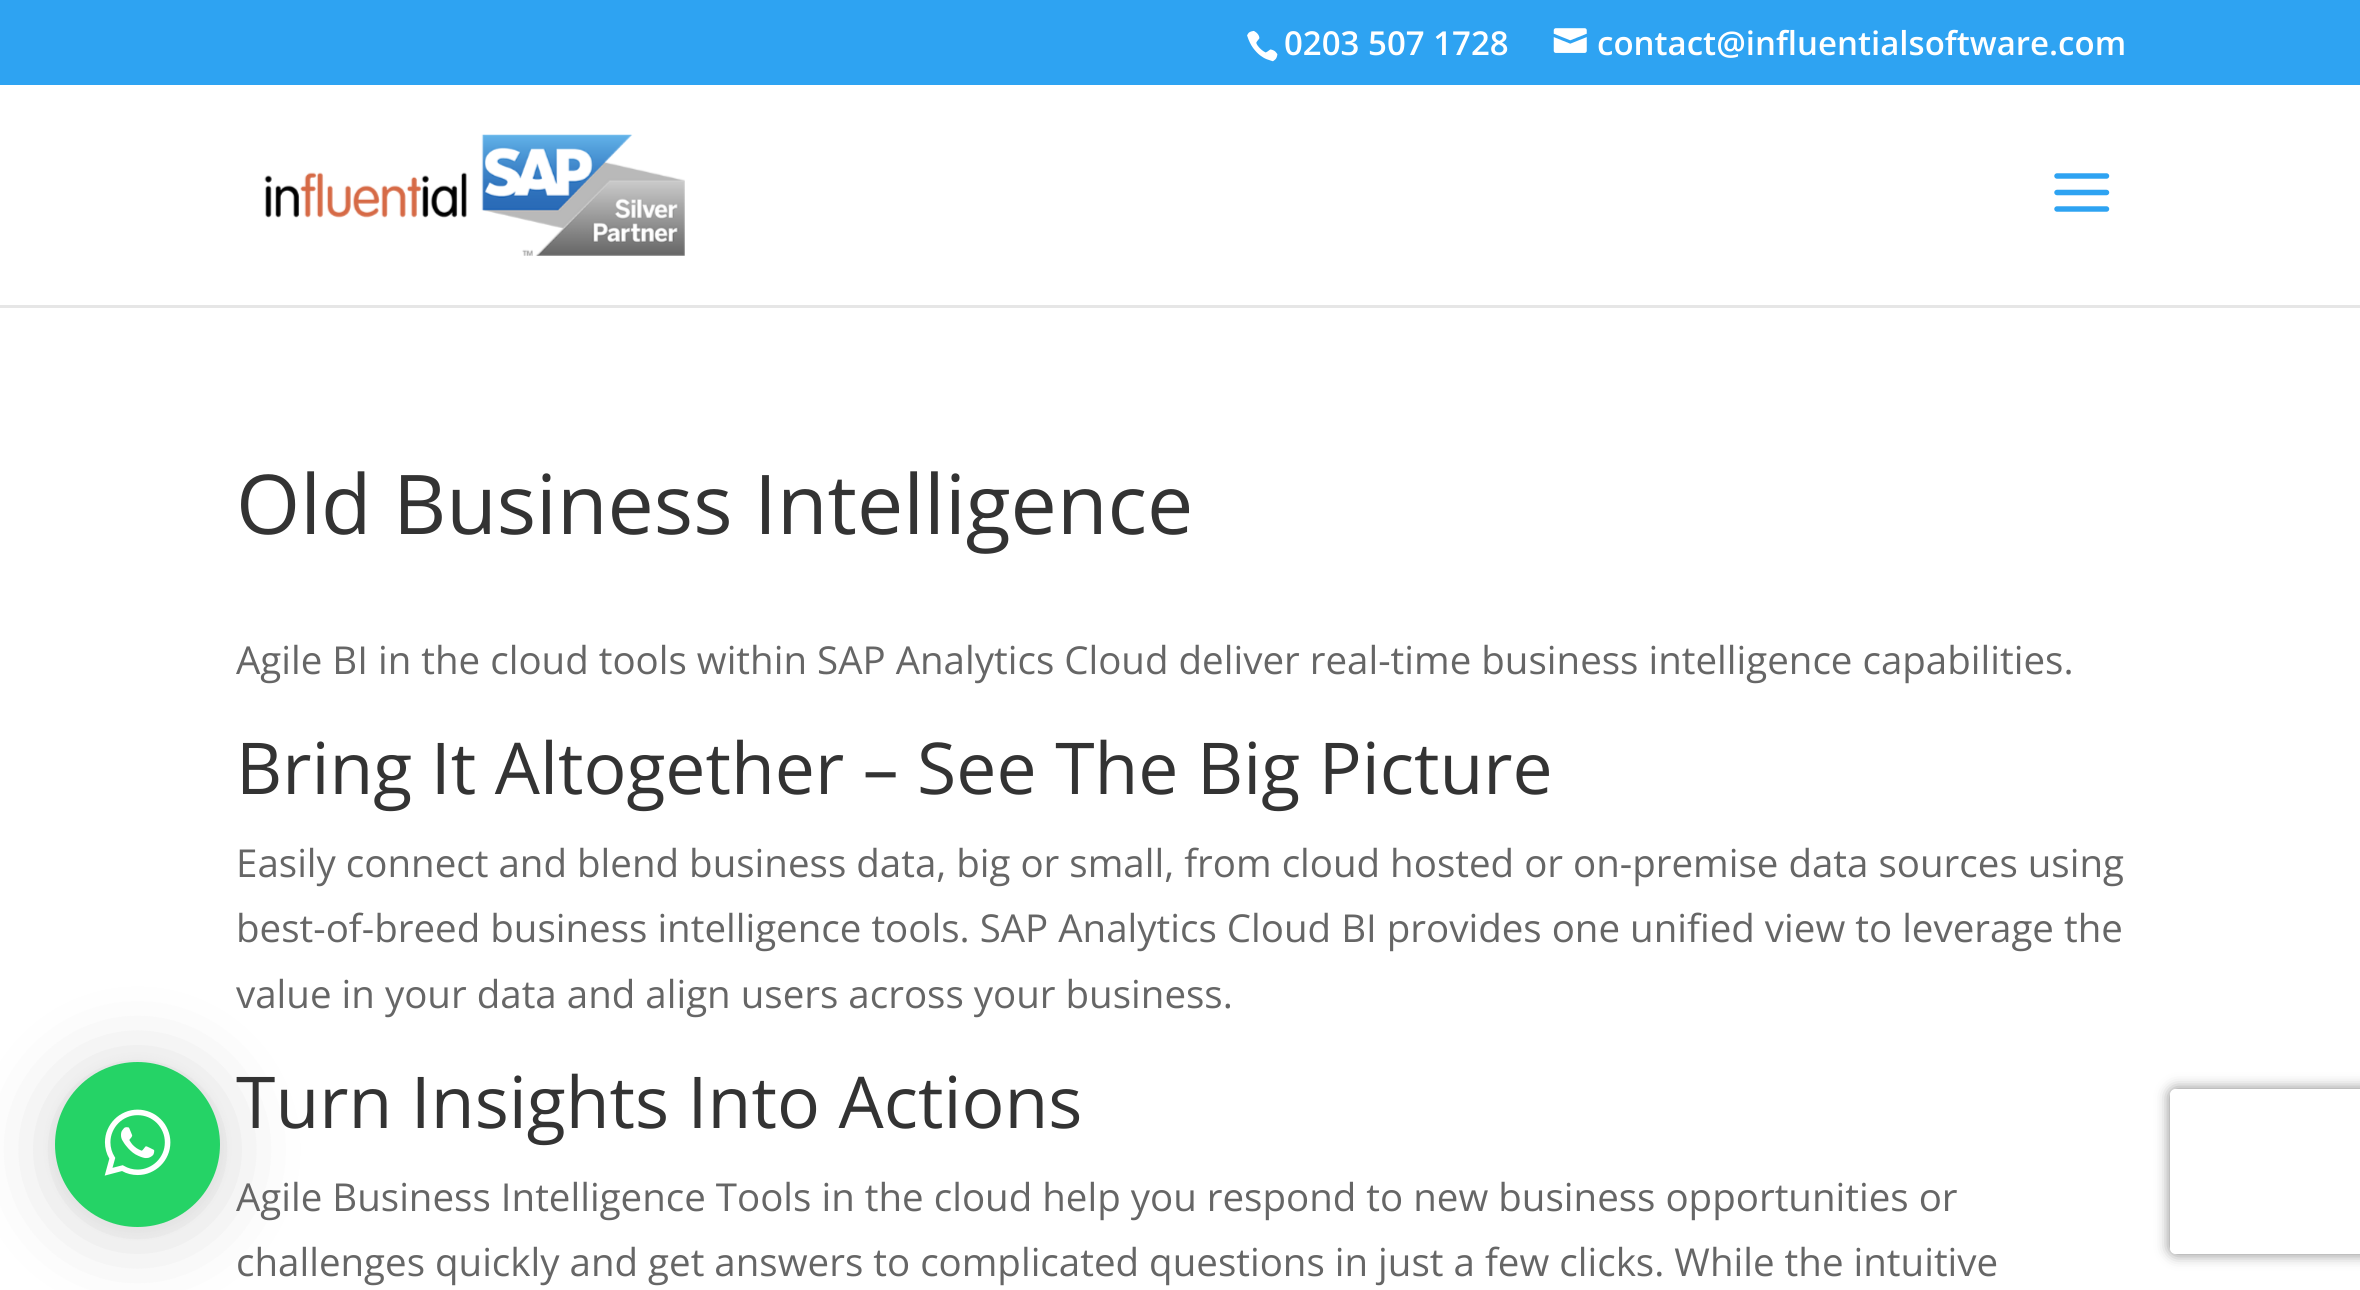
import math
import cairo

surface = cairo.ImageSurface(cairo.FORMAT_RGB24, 2360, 1290)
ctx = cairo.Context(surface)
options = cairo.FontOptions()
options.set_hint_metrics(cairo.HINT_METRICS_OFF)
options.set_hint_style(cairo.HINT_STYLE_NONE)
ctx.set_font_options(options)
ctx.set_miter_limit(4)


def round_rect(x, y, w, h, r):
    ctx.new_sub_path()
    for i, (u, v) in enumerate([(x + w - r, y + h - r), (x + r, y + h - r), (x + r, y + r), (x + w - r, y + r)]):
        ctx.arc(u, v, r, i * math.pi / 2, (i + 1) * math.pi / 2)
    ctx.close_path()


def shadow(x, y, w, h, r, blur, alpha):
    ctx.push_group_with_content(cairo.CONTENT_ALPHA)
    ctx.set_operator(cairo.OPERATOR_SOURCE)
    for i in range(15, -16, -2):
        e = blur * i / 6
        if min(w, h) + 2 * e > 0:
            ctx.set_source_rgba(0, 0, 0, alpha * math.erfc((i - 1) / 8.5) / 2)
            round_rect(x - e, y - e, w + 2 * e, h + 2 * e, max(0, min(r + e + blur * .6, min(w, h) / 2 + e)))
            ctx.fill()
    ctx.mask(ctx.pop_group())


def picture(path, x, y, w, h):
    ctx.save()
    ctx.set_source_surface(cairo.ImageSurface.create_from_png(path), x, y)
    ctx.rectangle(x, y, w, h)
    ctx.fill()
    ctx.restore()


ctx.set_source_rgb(1, 1, 1)
ctx.paint()
ctx.set_source_rgb(0, 0, 0)
shadow(55, 1067, 165, 165, 82.5, 44, 0.16)
shadow(55, 1064, 165, 165, 82.5, 8, 0.06)
ctx.set_source_rgb(0.145, 0.827, 0.4)
ctx.arc(137.5, 1144.5, 82.5, 0, 2 * math.pi)
ctx.fill()
picture("img1.png", 104, 1109, 67, 67)
ctx.set_source_rgb(0.18, 0.639, 0.949)
ctx.rectangle(0, 0, 2360, 85)
ctx.fill()
picture("img2.png", 1247, 30, 31, 32)
ctx.select_font_face("Open Sans SemiBold")
ctx.set_font_size(33)
ctx.set_source_rgb(1, 1, 1)
ctx.move_to(1284, 55)
ctx.show_text("0203 507 1728")
picture("img3.png", 1553, 28, 34, 25)
ctx.move_to(1597, 55)
ctx.show_text("contact@influentialsoftware.com")
ctx.set_source_rgb(0.902, 0.902, 0.902)
ctx.rectangle(0, 305, 2360, 3)
ctx.fill()
picture("img4.png", 264, 134, 421, 122)
picture("img5.png", 2054, 173, 56, 39)
ctx.select_font_face("Open Sans")
ctx.set_font_size(82.5)
ctx.set_source_rgb(0.2, 0.2, 0.2)
ctx.move_to(236, 534)
ctx.show_text("Old Business Intelligence")
ctx.set_font_size(38.5)
ctx.set_source_rgb(0.4, 0.4, 0.4)
ctx.move_to(236, 674)
ctx.show_text("Agile BI in the cloud tools within SAP Analytics Cloud deliver real-time business intelligence capabilities.")
ctx.set_font_size(71.5)
ctx.set_source_rgb(0.2, 0.2, 0.2)
ctx.move_to(236, 794)
ctx.show_text("Bring It Altogether – See The Big Picture")
ctx.set_font_size(38.5)
ctx.set_source_rgb(0.4, 0.4, 0.4)
ctx.move_to(236, 877)
ctx.show_text("Easily connect and blend business data, big or small, from cloud hosted or on-premise data sources using")
ctx.move_to(236, 942)
ctx.show_text("best-of-breed business intelligence tools. SAP Analytics Cloud BI provides one unified view to leverage the")
ctx.move_to(236, 1008)
ctx.show_text("value in your data and align users across your business.")
ctx.set_font_size(71.5)
ctx.set_source_rgb(0.2, 0.2, 0.2)
ctx.move_to(236, 1128)
ctx.show_text("Turn Insights Into Actions")
ctx.set_font_size(38.5)
ctx.set_source_rgb(0.4, 0.4, 0.4)
ctx.move_to(236, 1211)
ctx.show_text("Agile Business Intelligence Tools in the cloud help you respond to new business opportunities or")
ctx.move_to(236, 1276)
ctx.show_text("challenges quickly and get answers to complicated questions in just a few clicks. While the intuitive")
ctx.save()
ctx.set_fill_rule(cairo.FILL_RULE_EVEN_ODD)
ctx.new_path()
ctx.move_to(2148, 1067)
ctx.line_to(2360, 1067)
ctx.line_to(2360, 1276)
ctx.line_to(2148, 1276)
ctx.close_path()
ctx.move_to(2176, 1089)
ctx.line_to(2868, 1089)
ctx.curve_to(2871.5, 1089, 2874, 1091.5, 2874, 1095)
ctx.line_to(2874, 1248)
ctx.curve_to(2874, 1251.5, 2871.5, 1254, 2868, 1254)
ctx.line_to(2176, 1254)
ctx.curve_to(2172.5, 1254, 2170, 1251.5, 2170, 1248)
ctx.line_to(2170, 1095)
ctx.curve_to(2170, 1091.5, 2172.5, 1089, 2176, 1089)
ctx.close_path()
ctx.clip()
ctx.set_source_rgb(0.502, 0.502, 0.502)
shadow(2170, 1089, 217, 165, 6, 7, 1)
ctx.restore()
surface.write_to_png("page.png")
